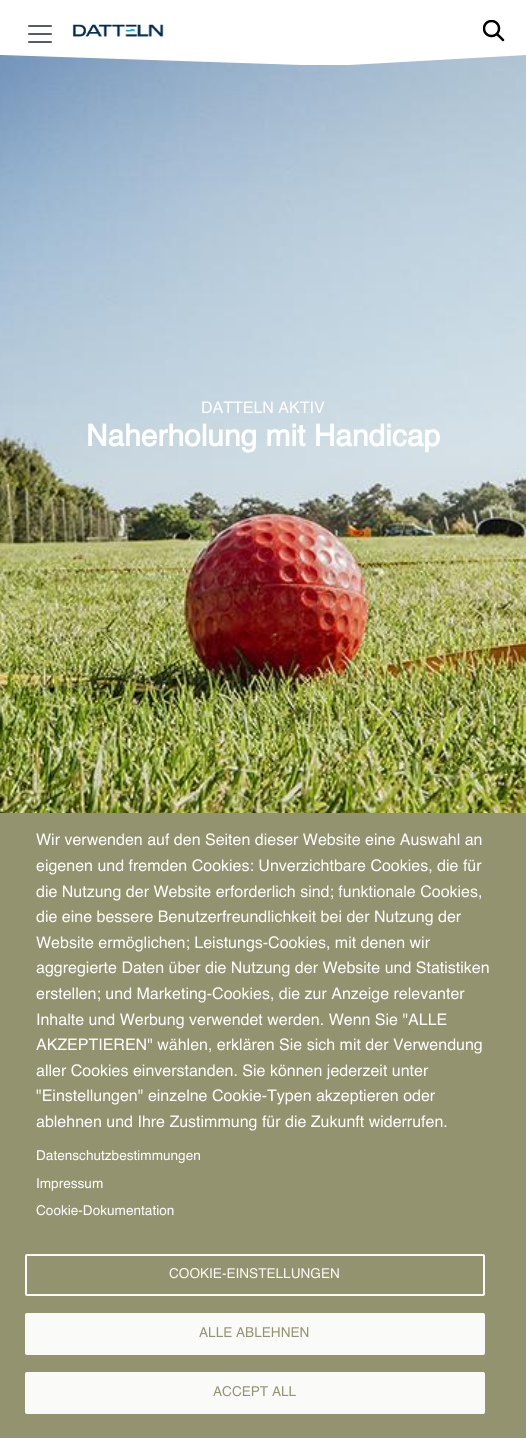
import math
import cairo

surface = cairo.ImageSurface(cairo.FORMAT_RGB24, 526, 1438)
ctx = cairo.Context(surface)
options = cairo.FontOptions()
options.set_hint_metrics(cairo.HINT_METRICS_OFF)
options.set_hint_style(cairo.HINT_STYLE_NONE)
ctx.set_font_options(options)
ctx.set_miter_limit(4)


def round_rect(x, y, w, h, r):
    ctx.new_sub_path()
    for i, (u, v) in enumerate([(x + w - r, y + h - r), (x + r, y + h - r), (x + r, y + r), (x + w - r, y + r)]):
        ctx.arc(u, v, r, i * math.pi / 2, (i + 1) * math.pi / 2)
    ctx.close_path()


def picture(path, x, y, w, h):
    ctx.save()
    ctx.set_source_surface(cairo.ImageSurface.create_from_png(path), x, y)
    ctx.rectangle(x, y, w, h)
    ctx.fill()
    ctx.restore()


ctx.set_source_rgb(1, 1, 1)
ctx.paint()
picture("img3.png", 0, 55, 526, 758)
ctx.save()
ctx.rectangle(0, 33, 526, 32)
ctx.clip()
ctx.set_source_rgb(1, 1, 1)
ctx.new_path()
ctx.move_to(0, 55)
ctx.line_to(331, 66)
ctx.line_to(526, 55)
ctx.line_to(526, 33)
ctx.line_to(0, 33)
ctx.close_path()
ctx.fill()
ctx.restore()
picture("img1.png", 28, 25, 24, 18)
picture("img2.png", 72, 24, 92, 13)
ctx.new_path()
ctx.move_to(497.5, 34.5)
ctx.line_to(503, 40)
ctx.set_source_rgb(0, 0, 0)
ctx.set_line_width(2.5)
ctx.set_line_cap(cairo.LINE_CAP_ROUND)
ctx.stroke()
ctx.save()
ctx.rectangle(483, 20, 22, 22)
ctx.clip()
ctx.arc(491.5, 28.5, 7.5, 0, 2 * math.pi)
ctx.set_line_cap(cairo.LINE_CAP_BUTT)
ctx.stroke()
ctx.restore()
ctx.select_font_face("Helvetica")
ctx.set_font_size(16)
ctx.set_source_rgb(1, 1, 1)
ctx.move_to(201, 413)
ctx.show_text("DATTELN AKTIV")
ctx.select_font_face("Helvetica", cairo.FONT_SLANT_NORMAL, cairo.FONT_WEIGHT_BOLD)
ctx.set_font_size(29.9)
ctx.move_to(86, 446)
ctx.show_text("Naherholung mit Handicap")
ctx.set_source_rgb(0.58, 0.576, 0.439)
ctx.rectangle(0, 813, 526, 625)
ctx.fill()
ctx.select_font_face("Helvetica")
ctx.set_font_size(16)
ctx.set_source_rgb(1, 1, 1)
ctx.move_to(36, 845)
ctx.show_text("Wir verwenden auf den Seiten dieser Website eine Auswahl an")
ctx.move_to(36, 871)
ctx.show_text("eigenen und fremden Cookies: Unverzichtbare Cookies, die für")
ctx.move_to(36, 897)
ctx.show_text("die Nutzung der Website erforderlich sind; funktionale Cookies,")
ctx.move_to(36, 922)
ctx.show_text("die eine bessere Benutzerfreundlichkeit bei der Nutzung der")
ctx.move_to(36, 948)
ctx.show_text("Website ermöglichen; Leistungs-Cookies, mit denen wir")
ctx.move_to(36, 973)
ctx.show_text("aggregierte Daten über die Nutzung der Website und Statistiken")
ctx.move_to(36, 999)
ctx.show_text("erstellen; und Marketing-Cookies, die zur Anzeige relevanter")
ctx.move_to(36, 1025)
ctx.show_text("Inhalte und Werbung verwendet werden. Wenn Sie \"ALLE")
ctx.move_to(36, 1050)
ctx.show_text("AKZEPTIEREN\" wählen, erklären Sie sich mit der Verwendung")
ctx.move_to(36, 1076)
ctx.show_text("aller Cookies einverstanden. Sie können jederzeit unter")
ctx.move_to(36, 1101)
ctx.show_text("\"Einstellungen\" einzelne Cookie-Typen akzeptieren oder")
ctx.move_to(36, 1127)
ctx.show_text("ablehnen und Ihre Zustimmung für die Zukunft widerrufen.")
ctx.set_font_size(13.6)
ctx.move_to(36, 1160)
ctx.show_text("Datenschutzbestimmungen")
ctx.move_to(36, 1188)
ctx.show_text("Impressum")
ctx.move_to(36, 1215)
ctx.show_text("Cookie-Dokumentation")
round_rect(26, 1255, 458, 40, 1)
ctx.set_source_rgb(0.98, 0.98, 0.973)
ctx.set_line_width(2)
ctx.set_line_cap(cairo.LINE_CAP_BUTT)
ctx.stroke()
ctx.move_to(169, 1278)
ctx.show_text("COOKIE-EINSTELLUNGEN")
round_rect(26, 1314, 458, 40, 1)
ctx.fill_preserve()
ctx.stroke()
ctx.set_source_rgb(0.58, 0.576, 0.439)
ctx.move_to(199, 1337)
ctx.show_text("ALLE ABLEHNEN")
ctx.set_source_rgb(0.98, 0.98, 0.973)
round_rect(26, 1373, 458, 40, 1)
ctx.fill_preserve()
ctx.stroke()
ctx.set_source_rgb(0.58, 0.576, 0.439)
ctx.move_to(213, 1396)
ctx.show_text("ACCEPT ALL")
surface.write_to_png("page.png")
